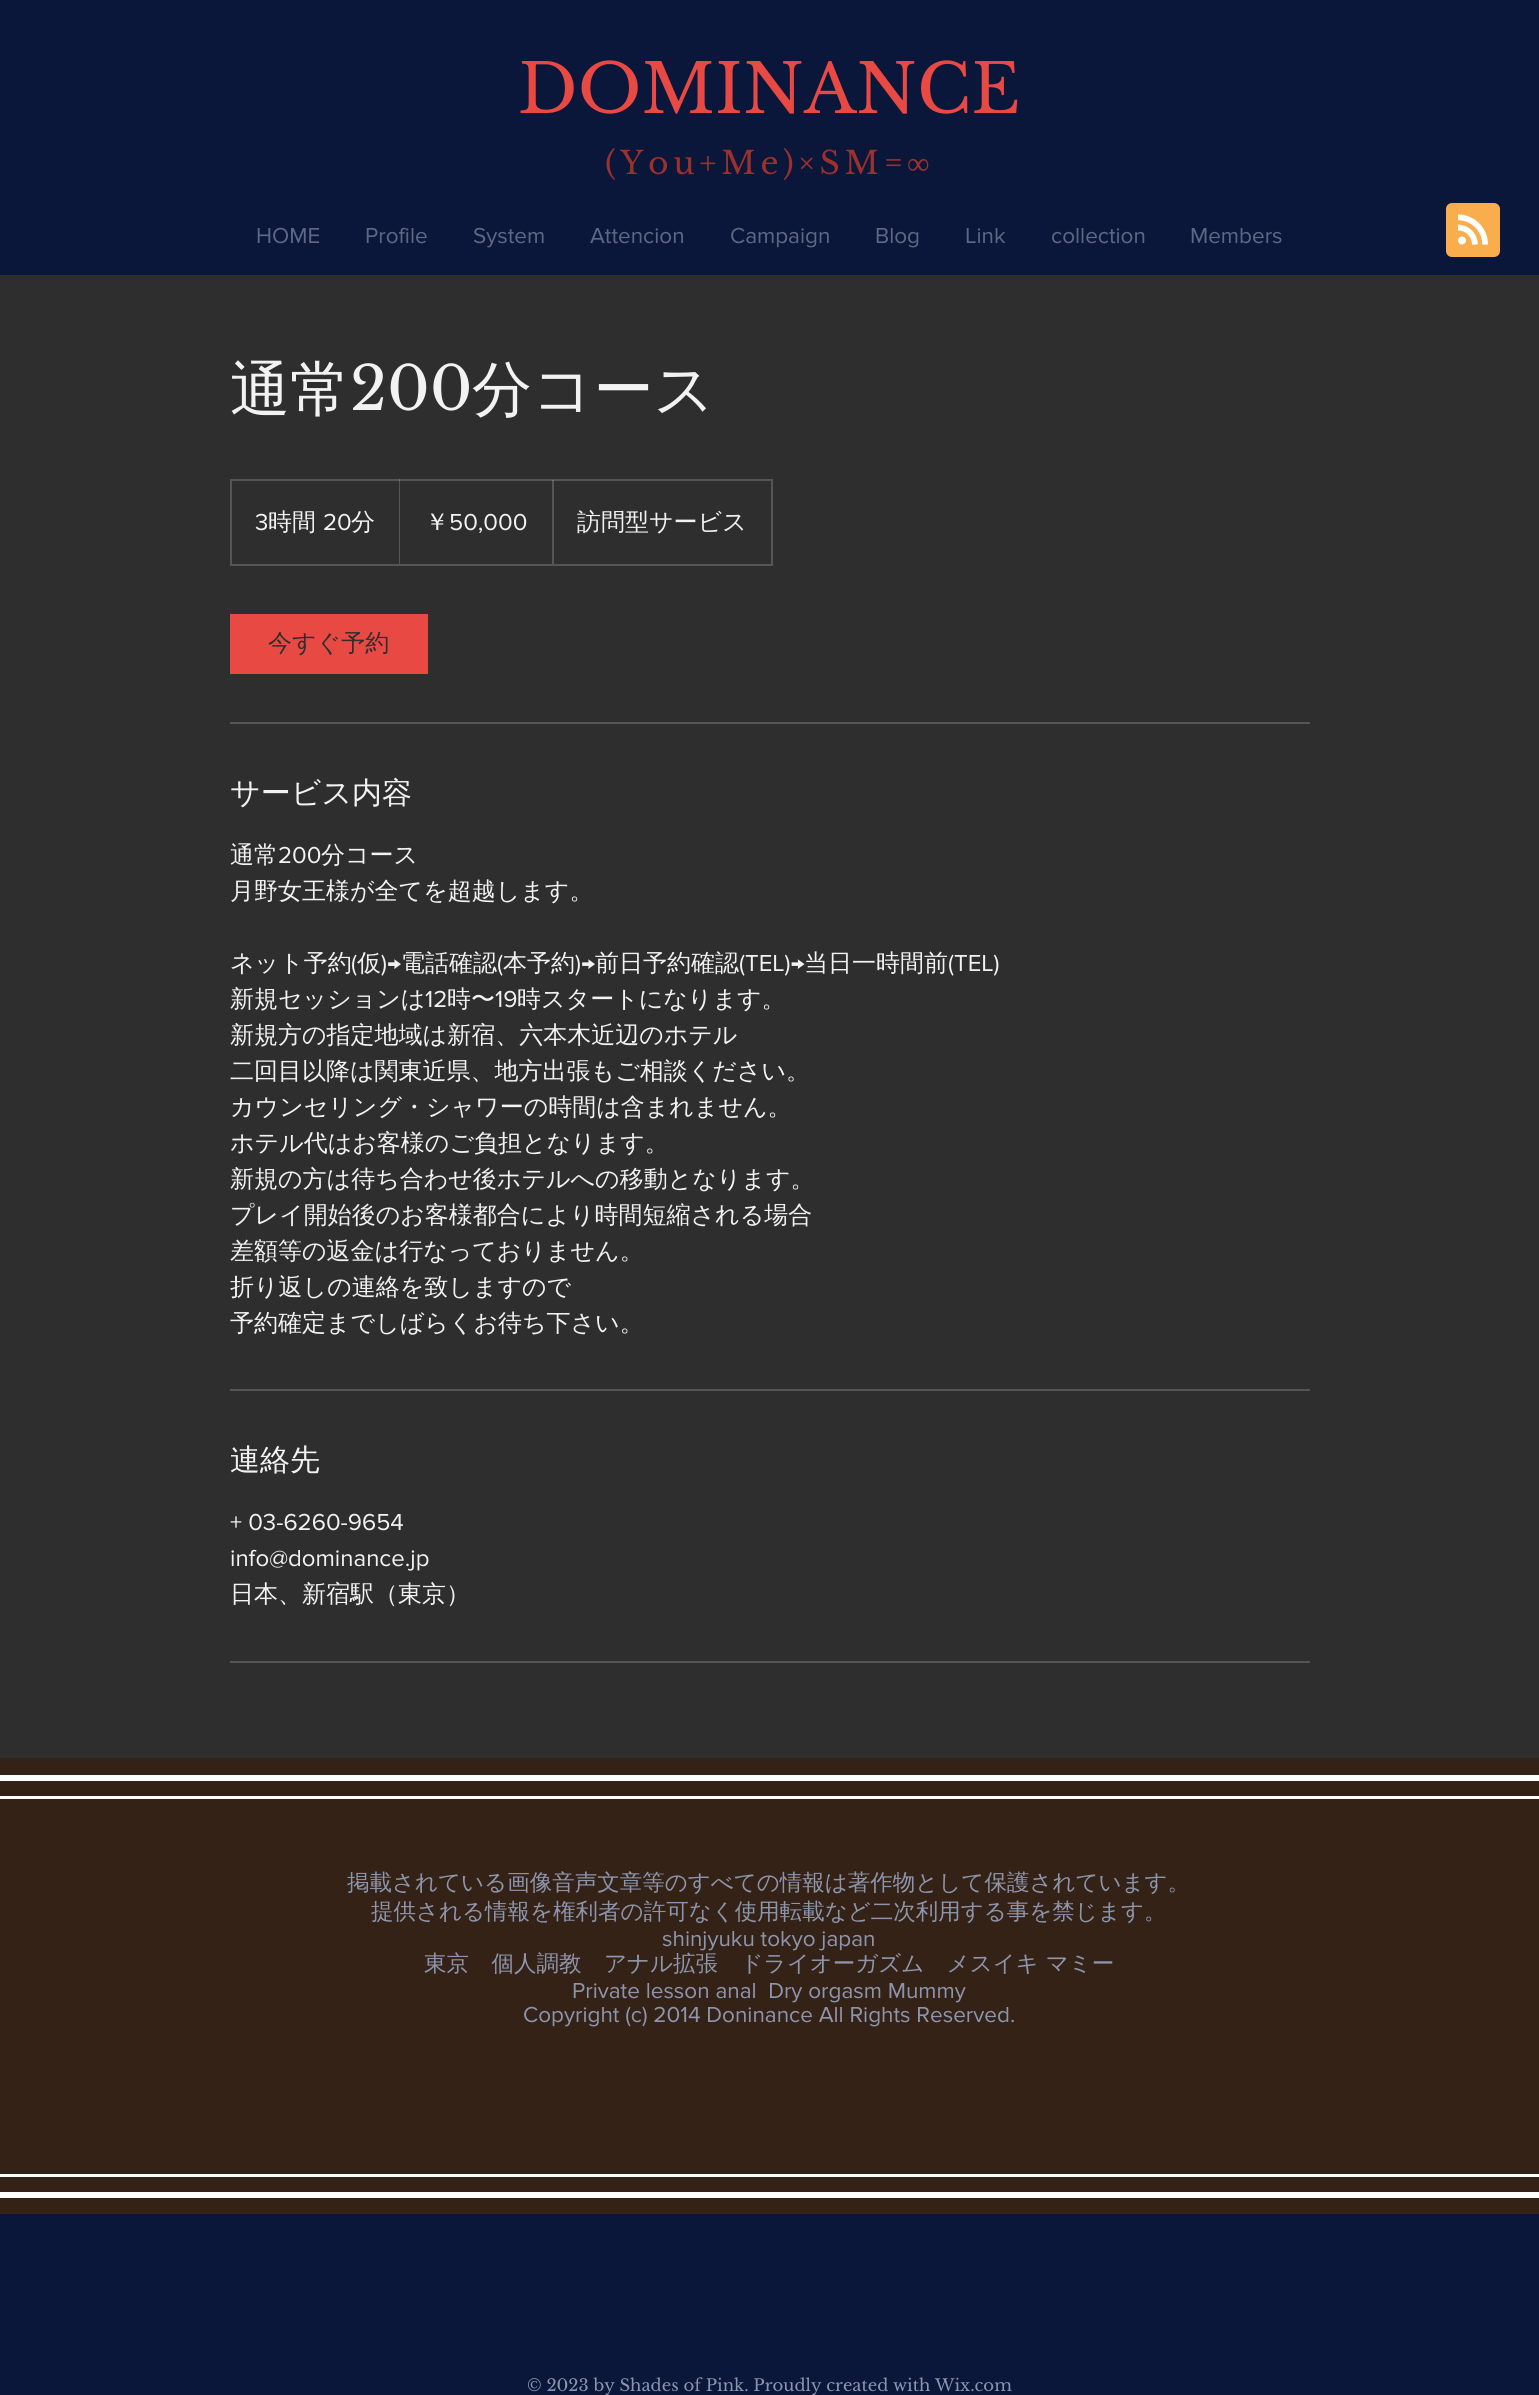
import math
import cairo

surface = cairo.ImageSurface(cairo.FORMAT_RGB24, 1539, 2395)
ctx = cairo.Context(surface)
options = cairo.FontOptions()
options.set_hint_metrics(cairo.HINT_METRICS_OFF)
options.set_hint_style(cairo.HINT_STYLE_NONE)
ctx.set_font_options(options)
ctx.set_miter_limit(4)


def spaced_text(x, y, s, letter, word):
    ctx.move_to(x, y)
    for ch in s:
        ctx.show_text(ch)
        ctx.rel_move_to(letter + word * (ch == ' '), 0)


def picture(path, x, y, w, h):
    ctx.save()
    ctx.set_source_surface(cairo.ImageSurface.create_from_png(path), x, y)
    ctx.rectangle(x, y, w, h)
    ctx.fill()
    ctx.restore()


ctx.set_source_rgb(0.043, 0.086, 0.231)
ctx.paint()
ctx.select_font_face("Libre Baskerville")
ctx.set_font_size(67.5)
ctx.set_source_rgb(0.91, 0.29, 0.263)
ctx.move_to(518, 113)
ctx.show_text("DOMINANCE")
ctx.set_font_size(31.5)
ctx.set_source_rgb(0.608, 0.192, 0.176)
spaced_text(605, 174, "(You+Me)×SM=", 4.75, 0)
ctx.select_font_face("Liberation Serif")
spaced_text(907, 174, "∞", 4.75, 0)
picture("img1.png", 1446, 203, 54, 54)
ctx.select_font_face("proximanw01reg")
ctx.set_font_size(22.5)
ctx.set_source_rgb(0.373, 0.408, 0.514)
ctx.move_to(256, 243)
ctx.show_text("HOME")
ctx.move_to(365, 243)
ctx.show_text("Profile")
ctx.move_to(473, 243)
ctx.show_text("System")
ctx.move_to(590, 243)
ctx.show_text("Attencion")
ctx.move_to(730, 243)
ctx.show_text("Campaign")
ctx.move_to(875, 243)
ctx.show_text("Blog")
ctx.move_to(965, 243)
ctx.show_text("Link")
ctx.move_to(1051, 243)
ctx.show_text("collection")
ctx.move_to(1190, 243)
ctx.show_text("Members")
ctx.set_source_rgb(0.184, 0.18, 0.18)
ctx.rectangle(0, 275, 1539, 1483)
ctx.fill()
ctx.select_font_face("WenQuanYi Zen Hei Medium")
ctx.set_font_size(60)
ctx.set_source_rgb(0.949, 0.949, 0.949)
ctx.move_to(230, 410)
ctx.show_text("通常")
ctx.select_font_face("Libre Baskerville")
ctx.move_to(350, 410)
ctx.show_text("200")
ctx.select_font_face("WenQuanYi Zen Hei Medium")
ctx.move_to(472, 410)
ctx.show_text("分コース")
ctx.rectangle(231, 480, 541, 85)
ctx.set_source_rgb(0.337, 0.333, 0.333)
ctx.stroke()
ctx.select_font_face("proximanw01reg")
ctx.set_font_size(24)
ctx.set_source_rgb(0.949, 0.949, 0.949)
ctx.move_to(255, 530)
ctx.show_text("3")
ctx.select_font_face("WenQuanYi Zen Hei Medium")
ctx.move_to(268, 530)
ctx.show_text("時間")
ctx.select_font_face("proximanw01reg")
ctx.move_to(323, 530)
ctx.show_text("20")
ctx.select_font_face("WenQuanYi Zen Hei Medium")
ctx.move_to(351, 530)
ctx.show_text("分")
ctx.set_source_rgba(0.949, 0.949, 0.949, 0.2)
ctx.new_path()
ctx.move_to(399, 564)
ctx.line_to(399, 478)
ctx.line_to(400, 480)
ctx.line_to(400, 564)
ctx.close_path()
ctx.fill()
ctx.set_source_rgb(0.949, 0.949, 0.949)
ctx.move_to(425, 530)
ctx.show_text("￥")
ctx.select_font_face("proximanw01reg")
ctx.move_to(449, 530)
ctx.show_text("50,000")
ctx.save()
ctx.rectangle(231, 480, 540, 84)
ctx.clip()
ctx.set_source_rgba(0.949, 0.949, 0.949, 0.2)
ctx.new_path()
ctx.move_to(552, 564)
ctx.line_to(552, 478)
ctx.line_to(554, 480)
ctx.line_to(554, 564)
ctx.close_path()
ctx.fill()
ctx.restore()
ctx.select_font_face("WenQuanYi Zen Hei Medium")
ctx.move_to(577, 530)
ctx.show_text("訪問型サービス")
ctx.set_source_rgb(0.91, 0.29, 0.263)
ctx.rectangle(230, 614, 198, 60)
ctx.fill()
ctx.set_source_rgb(0.184, 0.18, 0.18)
ctx.move_to(268, 651)
ctx.show_text("今すぐ予約")
ctx.set_source_rgb(0.337, 0.333, 0.333)
ctx.rectangle(230, 722, 1080, 2)
ctx.fill()
ctx.set_font_size(30)
ctx.set_source_rgb(0.949, 0.949, 0.949)
ctx.move_to(230, 803)
ctx.show_text("サービス内容")
ctx.set_font_size(24)
ctx.move_to(230, 863)
ctx.show_text("通常")
ctx.select_font_face("proximanw01reg")
ctx.move_to(278, 863)
ctx.show_text("200")
ctx.select_font_face("WenQuanYi Zen Hei Medium")
ctx.move_to(321, 863)
ctx.show_text("分コース")
ctx.move_to(230, 899)
ctx.show_text("月野女王様が全てを超越します。")
ctx.move_to(230, 971)
ctx.show_text("ネット予約")
ctx.select_font_face("proximanw01reg")
ctx.move_to(351, 971)
ctx.show_text("(")
ctx.select_font_face("WenQuanYi Zen Hei Medium")
ctx.move_to(357, 971)
ctx.show_text("仮")
ctx.select_font_face("proximanw01reg")
ctx.move_to(381, 971)
ctx.show_text(")→")
ctx.select_font_face("WenQuanYi Zen Hei Medium")
ctx.move_to(401, 971)
ctx.show_text("電話確認")
ctx.select_font_face("proximanw01reg")
ctx.move_to(497, 971)
ctx.show_text("(")
ctx.select_font_face("WenQuanYi Zen Hei Medium")
ctx.move_to(503, 971)
ctx.show_text("本予約")
ctx.select_font_face("proximanw01reg")
ctx.move_to(575, 971)
ctx.show_text(")→")
ctx.select_font_face("WenQuanYi Zen Hei Medium")
ctx.move_to(595, 971)
ctx.show_text("前日予約確認")
ctx.select_font_face("proximanw01reg")
ctx.move_to(739, 971)
ctx.show_text("(TEL)→")
ctx.select_font_face("WenQuanYi Zen Hei Medium")
ctx.move_to(804, 971)
ctx.show_text("当日一時間前")
ctx.select_font_face("proximanw01reg")
ctx.move_to(948, 971)
ctx.show_text("(TEL)")
ctx.select_font_face("WenQuanYi Zen Hei Medium")
ctx.move_to(230, 1007)
ctx.show_text("新規セッションは")
ctx.select_font_face("proximanw01reg")
ctx.move_to(425, 1007)
ctx.show_text("12")
ctx.select_font_face("WenQuanYi Zen Hei Medium")
ctx.move_to(447, 1007)
ctx.show_text("時〜")
ctx.select_font_face("proximanw01reg")
ctx.move_to(495, 1007)
ctx.show_text("19")
ctx.select_font_face("WenQuanYi Zen Hei Medium")
ctx.move_to(517, 1007)
ctx.show_text("時スタートになります。")
ctx.move_to(230, 1043)
ctx.show_text("新規方の指定地域は新宿、六本木近辺のホテル")
ctx.move_to(230, 1079)
ctx.show_text("二回目以降は関東近県、地方出張もご相談ください。")
ctx.move_to(230, 1115)
ctx.show_text("カウンセリング・シャワーの時間は含まれません。")
ctx.move_to(230, 1151)
ctx.show_text("ホテル代はお客様のご負担となります。")
ctx.move_to(230, 1187)
ctx.show_text("新規の方は待ち合わせ後ホテルへの移動となります。")
ctx.move_to(230, 1223)
ctx.show_text("プレイ開始後のお客様都合により時間短縮される場合")
ctx.move_to(230, 1259)
ctx.show_text("差額等の返金は行なっておりません。")
ctx.move_to(230, 1295)
ctx.show_text("折り返しの連絡を致しますので")
ctx.move_to(230, 1331)
ctx.show_text("予約確定までしばらくお待ち下さい。")
ctx.set_source_rgb(0.337, 0.333, 0.333)
ctx.rectangle(230, 1389, 1080, 2)
ctx.fill()
ctx.set_font_size(30)
ctx.set_source_rgb(0.949, 0.949, 0.949)
ctx.move_to(230, 1470)
ctx.show_text("連絡先")
ctx.select_font_face("proximanw01reg")
ctx.set_font_size(24)
ctx.move_to(230, 1530)
ctx.show_text("+ 03-6260-9654")
ctx.move_to(230, 1566)
ctx.show_text("info@dominance.jp")
ctx.select_font_face("WenQuanYi Zen Hei Medium")
ctx.move_to(230, 1602)
ctx.show_text("日本、新宿駅（東京）")
ctx.set_source_rgb(0.337, 0.333, 0.333)
ctx.rectangle(230, 1661, 1080, 2)
ctx.fill()
ctx.set_source_rgb(0.204, 0.133, 0.086)
ctx.rectangle(0, 1758, 1539, 456)
ctx.fill()
ctx.set_source_rgb(1, 1, 1)
ctx.rectangle(0, 1775, 1539, 6)
ctx.fill()
ctx.rectangle(0, 2192, 1539, 6)
ctx.fill()
ctx.rectangle(0, 1796, 1539, 3)
ctx.fill()
ctx.rectangle(0, 2174, 1539, 3)
ctx.fill()
ctx.set_font_size(22.5)
ctx.set_source_rgb(0.553, 0.584, 0.675)
ctx.move_to(347, 1890)
ctx.show_text("掲載されている画像音声文章等のすべての情報は著作物として保護されています。")
ctx.move_to(371, 1919)
ctx.show_text("提供される情報を権利者の許可なく使用転載など二次利用する事を禁じます。")
ctx.select_font_face("proximanw01reg")
ctx.move_to(662, 1946)
ctx.show_text("shinjyuku tokyo japan")
ctx.select_font_face("WenQuanYi Zen Hei Medium")
ctx.move_to(424, 1971)
ctx.show_text("東京　個人調教　アナル拡張　ドライオーガズム　メスイキ マミー")
ctx.select_font_face("proximanw01reg")
ctx.move_to(572, 1998)
ctx.show_text("Private lesson anal  Dry orgasm Mummy")
ctx.move_to(523, 2022)
ctx.show_text("Copyright (c) 2014 Doninance All Rights Reserved.")
ctx.select_font_face("Libre Baskerville")
ctx.set_font_size(16.5)
ctx.move_to(527, 2391)
ctx.show_text("© 2023 by Shades of Pink. Proudly created with Wix.com")
surface.write_to_png("page.png")
